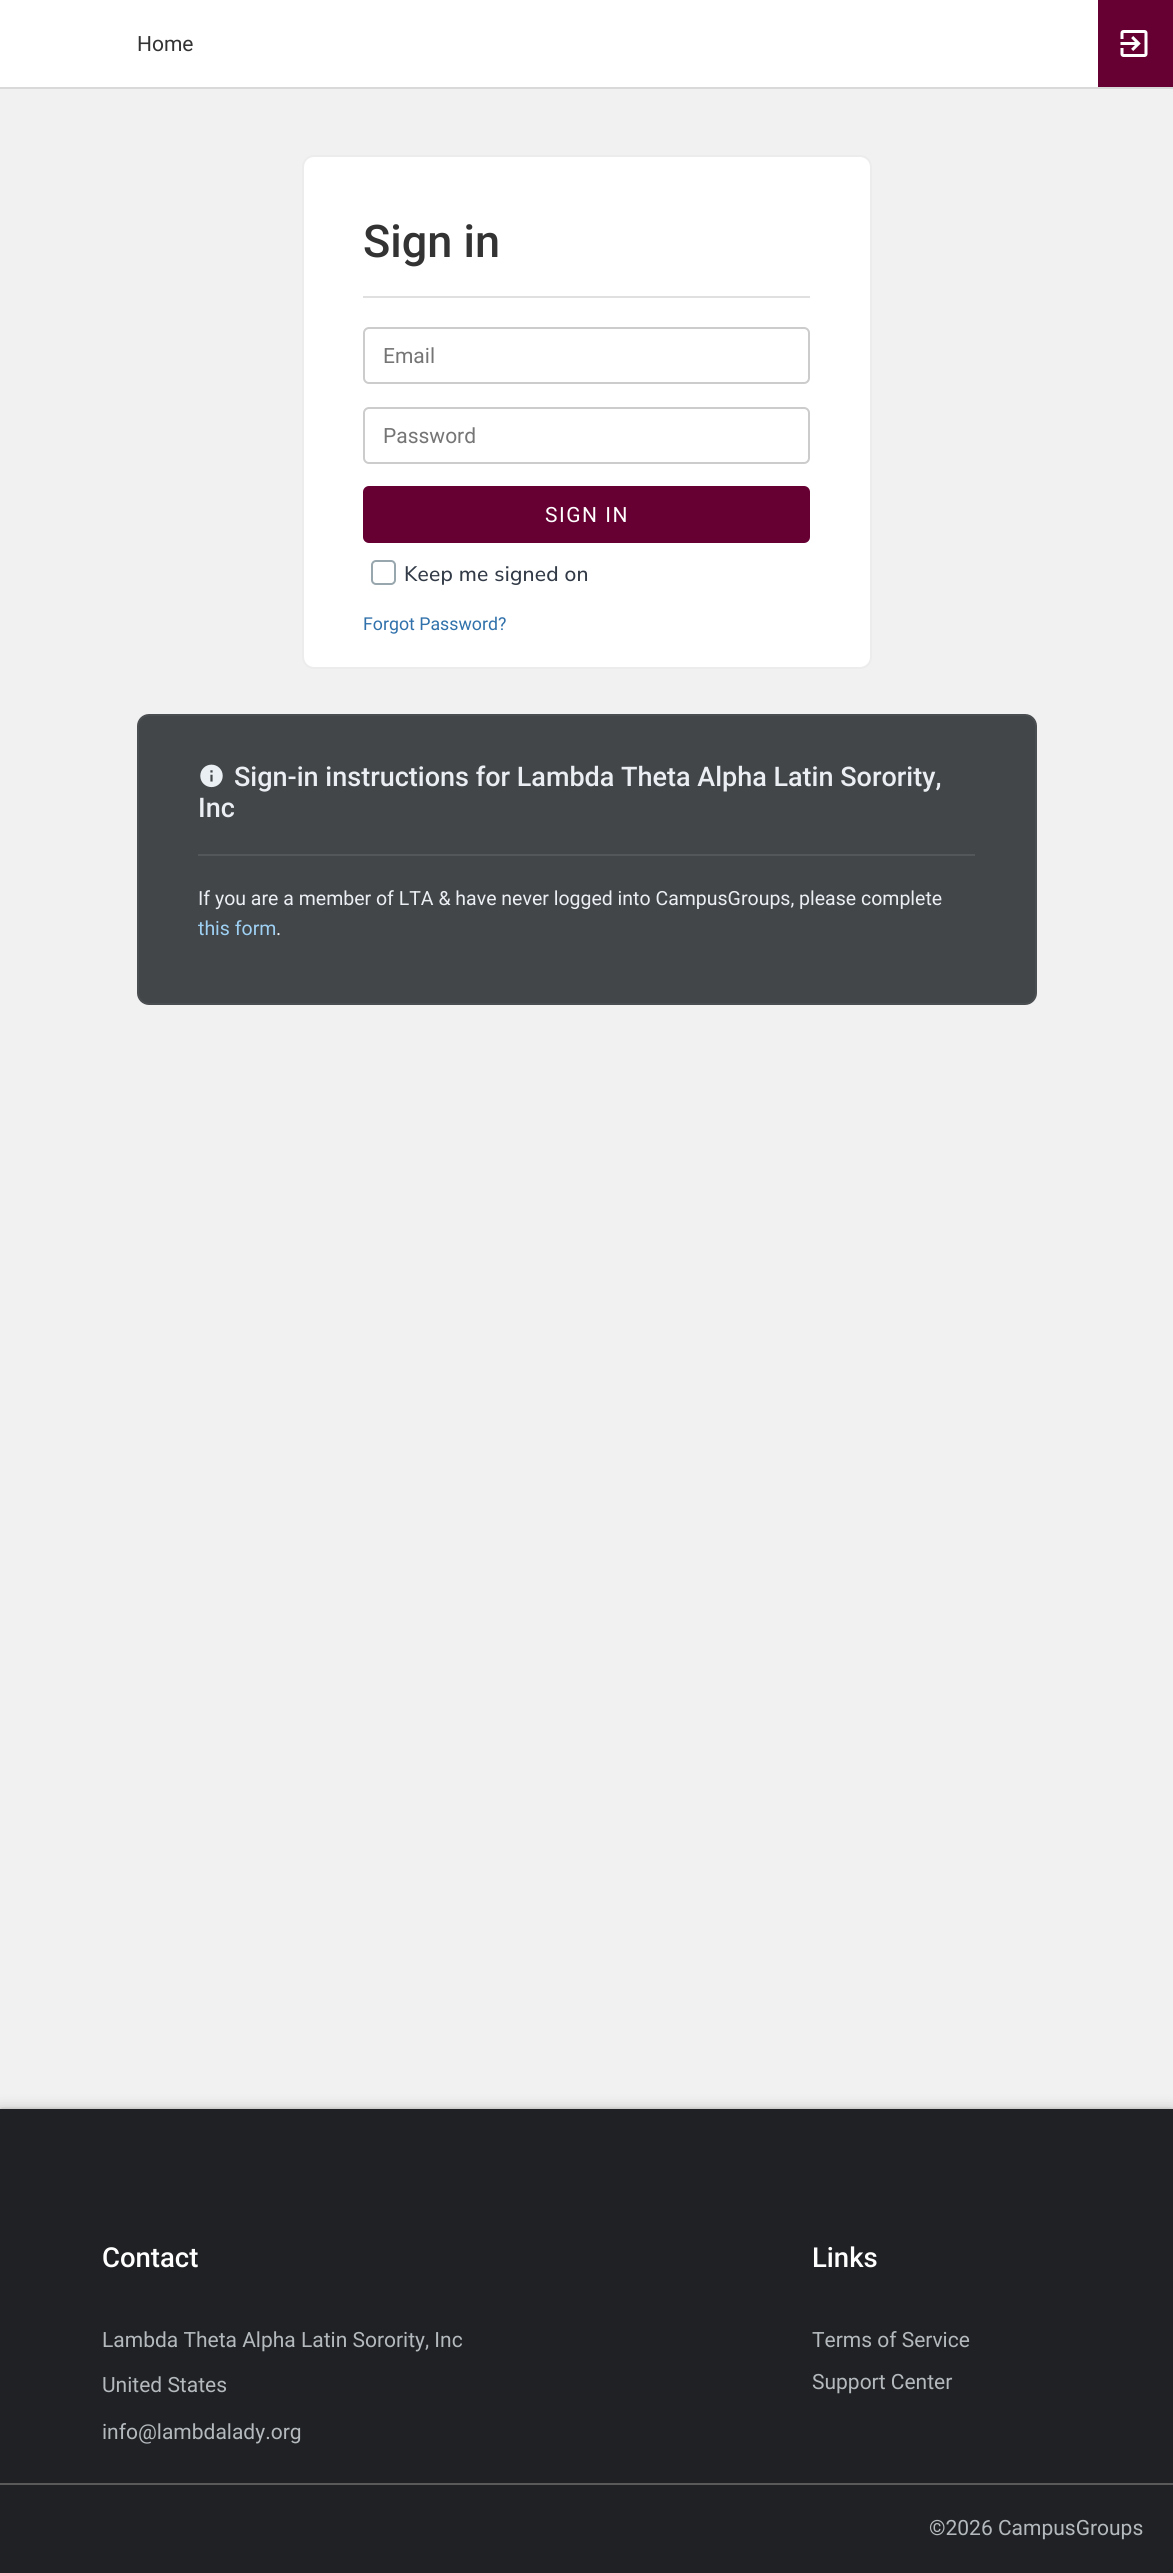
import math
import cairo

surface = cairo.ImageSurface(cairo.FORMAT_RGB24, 1173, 2573)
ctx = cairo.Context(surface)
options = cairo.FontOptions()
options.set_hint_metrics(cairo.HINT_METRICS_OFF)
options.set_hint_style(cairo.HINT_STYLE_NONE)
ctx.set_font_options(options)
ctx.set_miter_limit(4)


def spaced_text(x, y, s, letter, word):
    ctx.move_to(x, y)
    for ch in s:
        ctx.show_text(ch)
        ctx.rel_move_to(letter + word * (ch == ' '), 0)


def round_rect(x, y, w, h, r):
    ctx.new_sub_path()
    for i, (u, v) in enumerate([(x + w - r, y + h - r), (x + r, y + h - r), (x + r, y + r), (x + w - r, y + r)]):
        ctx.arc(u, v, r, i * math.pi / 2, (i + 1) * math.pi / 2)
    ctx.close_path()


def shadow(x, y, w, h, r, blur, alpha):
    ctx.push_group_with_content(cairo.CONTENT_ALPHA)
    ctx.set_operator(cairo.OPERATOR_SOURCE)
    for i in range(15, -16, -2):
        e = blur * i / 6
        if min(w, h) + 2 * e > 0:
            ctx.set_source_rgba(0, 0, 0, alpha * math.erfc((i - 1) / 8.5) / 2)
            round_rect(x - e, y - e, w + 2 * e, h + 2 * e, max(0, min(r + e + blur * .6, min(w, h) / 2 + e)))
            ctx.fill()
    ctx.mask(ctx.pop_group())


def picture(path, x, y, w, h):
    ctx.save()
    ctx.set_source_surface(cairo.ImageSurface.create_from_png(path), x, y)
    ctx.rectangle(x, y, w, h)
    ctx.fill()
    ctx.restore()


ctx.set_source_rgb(0.945, 0.945, 0.945)
ctx.paint()
ctx.set_source_rgb(1, 1, 1)
ctx.rectangle(0, 0, 1098, 87)
ctx.fill()
ctx.set_source_rgb(0.851, 0.851, 0.851)
ctx.rectangle(0, 87, 1173, 2)
ctx.fill()
ctx.select_font_face("Roboto")
ctx.set_font_size(21)
ctx.set_source_rgb(0.2, 0.2, 0.2)
ctx.move_to(137, 51)
ctx.show_text("Home")
ctx.set_source_rgb(0.4, 0, 0.2)
ctx.rectangle(1098, 0, 75, 87)
ctx.fill()
picture("img1.png", 1120, 30, 28, 27)
ctx.set_source_rgb(1, 1, 1)
round_rect(303, 156, 568, 512, 11)
ctx.fill_preserve()
ctx.set_source_rgb(0.925, 0.925, 0.925)
ctx.stroke()
ctx.select_font_face("Roboto Medium")
ctx.set_font_size(45)
ctx.set_source_rgb(0.2, 0.2, 0.2)
ctx.move_to(363, 257)
ctx.show_text("Sign in")
ctx.set_source_rgb(0.878, 0.878, 0.878)
ctx.rectangle(363, 296, 447, 2)
ctx.fill()
round_rect(364, 328, 445, 55, 5)
ctx.set_source_rgb(0.8, 0.8, 0.8)
ctx.stroke()
ctx.select_font_face("Roboto")
ctx.set_font_size(21)
ctx.set_source_rgb(0.459, 0.459, 0.459)
ctx.move_to(383, 363)
ctx.show_text("Email")
round_rect(364, 408, 445, 55, 5)
ctx.set_source_rgb(0.8, 0.8, 0.8)
ctx.stroke()
ctx.set_source_rgb(0.459, 0.459, 0.459)
ctx.move_to(383, 443)
ctx.show_text("Password")
ctx.set_source_rgb(0.4, 0, 0.2)
round_rect(363, 486, 447, 57, 6)
ctx.fill()
ctx.set_source_rgb(1, 1, 1)
spaced_text(545, 522, "SIGN IN", 1.5, 0)
round_rect(372, 561, 23, 23, 4)
ctx.set_source_rgb(0.596, 0.651, 0.678)
ctx.stroke()
ctx.select_font_face("Nunito Sans Medium")
ctx.set_source_rgb(0.192, 0.227, 0.275)
spaced_text(404, 581, "Keep me signed on", 0.25, 0)
ctx.select_font_face("Roboto")
ctx.set_font_size(17.75)
ctx.set_source_rgb(0.188, 0.443, 0.671)
ctx.move_to(363, 630)
ctx.show_text("Forgot Password?")
ctx.set_source_rgb(0.259, 0.275, 0.286)
round_rect(138, 715, 898, 289, 11)
ctx.fill_preserve()
ctx.set_source_rgb(0.294, 0.306, 0.318)
ctx.stroke()
picture("img2.png", 200, 764, 23, 24)
ctx.select_font_face("Roboto Medium")
ctx.set_font_size(27)
ctx.set_source_rgb(0.918, 0.937, 0.953)
ctx.move_to(234, 786)
ctx.show_text("Sign-in instructions for Lambda Theta Alpha Latin Sorority,")
ctx.move_to(198, 817)
ctx.show_text("Inc")
ctx.set_source_rgb(0.325, 0.341, 0.353)
ctx.rectangle(198, 854, 777, 2)
ctx.fill()
ctx.select_font_face("Roboto")
ctx.set_font_size(19.5)
ctx.set_source_rgb(0.918, 0.937, 0.953)
ctx.move_to(198, 905)
ctx.show_text("If you are a member of LTA & have never logged into CampusGroups, please complete")
ctx.set_source_rgb(0.62, 0.816, 0.953)
ctx.move_to(198, 935)
ctx.show_text("this form")
ctx.set_source_rgb(0.918, 0.937, 0.953)
ctx.move_to(276, 935)
ctx.show_text(".")
ctx.set_source_rgb(0, 0, 0)
shadow(2, 2109, 1170, 462, 0, 1, 0.12)
shadow(0, 2108, 1173, 465, 0, 7.5, 0.14)
shadow(0, 2108, 1173, 465, 0, 2, 0.1)
ctx.set_source_rgb(0.125, 0.129, 0.141)
ctx.rectangle(0, 2109, 1173, 464)
ctx.fill()
ctx.select_font_face("Roboto Medium")
ctx.set_font_size(27.5)
ctx.set_source_rgb(1, 1, 1)
ctx.move_to(102, 2267)
ctx.show_text("Contact")
ctx.select_font_face("Roboto")
ctx.set_font_size(21)
ctx.set_source_rgb(0.702, 0.725, 0.741)
ctx.move_to(102, 2347)
ctx.show_text("Lambda Theta Alpha Latin Sorority, Inc")
ctx.move_to(102, 2392)
ctx.show_text("United States")
ctx.move_to(102, 2439)
ctx.show_text("info@lambdalady.org")
ctx.select_font_face("Roboto Medium")
ctx.set_font_size(27.5)
ctx.set_source_rgb(1, 1, 1)
ctx.move_to(812, 2267)
ctx.show_text("Links")
ctx.select_font_face("Roboto")
ctx.set_font_size(21)
ctx.set_source_rgb(0.702, 0.725, 0.741)
ctx.move_to(812, 2347)
ctx.show_text("Terms of Service")
ctx.move_to(812, 2389)
ctx.show_text("Support Center")
ctx.set_source_rgb(0.353, 0.353, 0.353)
ctx.rectangle(0, 2483, 1173, 2)
ctx.fill()
ctx.set_source_rgb(0.702, 0.725, 0.741)
ctx.move_to(929, 2535)
ctx.show_text("©2026 CampusGroups")
surface.write_to_png("page.png")
